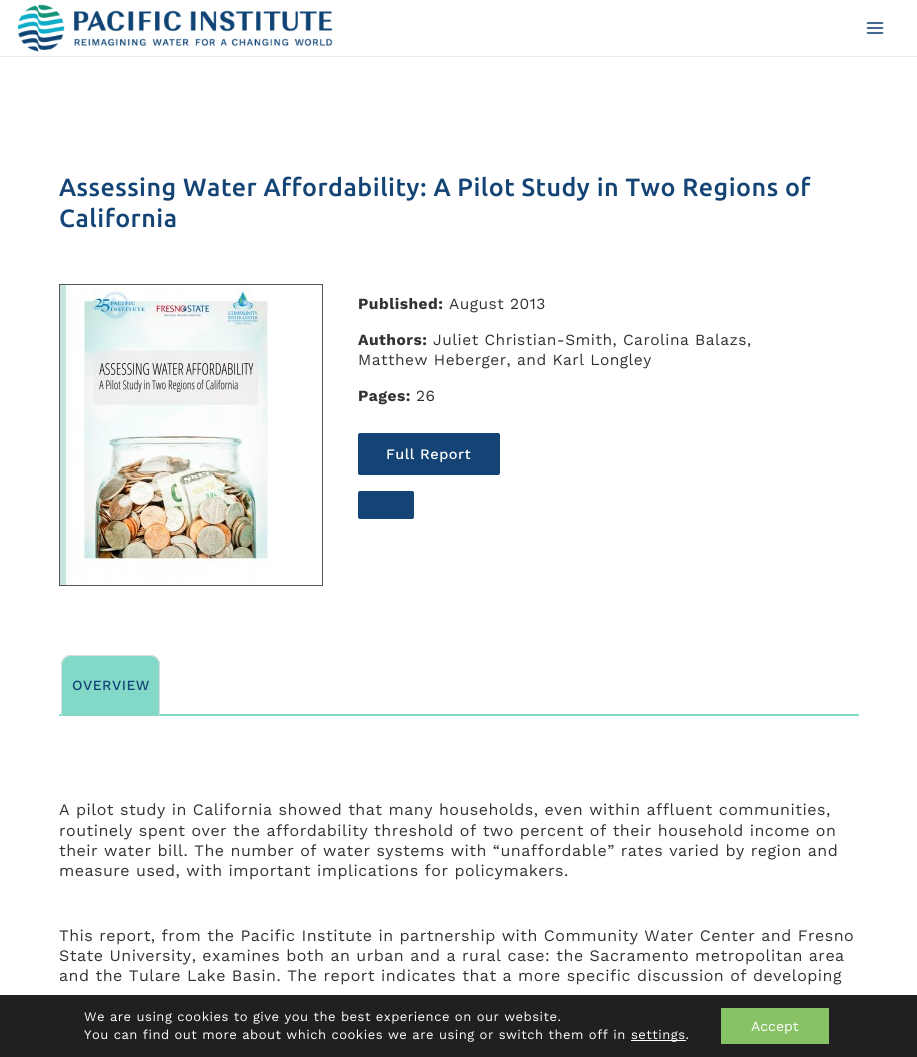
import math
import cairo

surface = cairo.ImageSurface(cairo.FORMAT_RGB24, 917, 1057)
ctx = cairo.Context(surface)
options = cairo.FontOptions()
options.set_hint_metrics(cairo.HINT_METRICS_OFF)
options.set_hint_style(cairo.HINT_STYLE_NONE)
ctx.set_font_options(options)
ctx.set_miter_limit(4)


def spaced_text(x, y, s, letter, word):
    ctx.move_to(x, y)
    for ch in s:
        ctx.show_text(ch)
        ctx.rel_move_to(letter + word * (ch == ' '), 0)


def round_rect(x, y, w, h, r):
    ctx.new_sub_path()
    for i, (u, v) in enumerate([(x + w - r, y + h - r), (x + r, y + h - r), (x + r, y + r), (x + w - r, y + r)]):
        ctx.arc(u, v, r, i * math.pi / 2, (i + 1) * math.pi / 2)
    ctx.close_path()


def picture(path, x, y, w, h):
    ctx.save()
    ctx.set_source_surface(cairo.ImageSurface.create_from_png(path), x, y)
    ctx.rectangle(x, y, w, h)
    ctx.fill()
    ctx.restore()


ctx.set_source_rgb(1, 1, 1)
ctx.paint()
ctx.set_source_rgb(0.918, 0.918, 0.918)
ctx.rectangle(0, 56, 917, 1)
ctx.fill()
picture("img1.png", 17, 4, 316, 48)
picture("img2.png", 866, 22, 18, 12)
ctx.select_font_face("Ubuntu Medium")
ctx.set_font_size(25)
ctx.set_source_rgb(0.082, 0.267, 0.459)
spaced_text(59, 196, "Assessing Water Affordability: A Pilot Study in Two Regions of", 0.5, 0)
spaced_text(59, 227, "California", 0.5, 0)
ctx.rectangle(59.5, 284.5, 263, 301)
ctx.set_source_rgb(0.333, 0.333, 0.333)
ctx.set_line_width(1)
ctx.stroke()
picture("img3.png", 60, 285, 209, 300)
ctx.select_font_face("Work Sans", cairo.FONT_SLANT_NORMAL, cairo.FONT_WEIGHT_BOLD)
ctx.set_font_size(15.5)
ctx.set_source_rgb(0.2, 0.2, 0.2)
spaced_text(358, 309, "Published:", 0.5, 0)
ctx.select_font_face("Work Sans")
spaced_text(449, 309, "August 2013", 0.5, 0)
ctx.select_font_face("Work Sans", cairo.FONT_SLANT_NORMAL, cairo.FONT_WEIGHT_BOLD)
spaced_text(358, 345, "Authors:", 0.5, 0)
ctx.select_font_face("Work Sans")
spaced_text(433, 345, "Juliet Christian-Smith, Carolina Balazs,", 0.5, 0)
spaced_text(358, 365, "Matthew Heberger, and Karl Longley", 0.5, 0)
ctx.select_font_face("Work Sans", cairo.FONT_SLANT_NORMAL, cairo.FONT_WEIGHT_BOLD)
spaced_text(358, 401, "Pages:", 0.5, 0)
ctx.select_font_face("Work Sans")
spaced_text(416, 401, "26", 0.5, 0)
ctx.set_source_rgb(0.082, 0.267, 0.459)
round_rect(358, 433, 142, 42, 2)
ctx.fill()
ctx.select_font_face("Work Sans Medium")
ctx.set_font_size(14.5)
ctx.set_source_rgb(1, 1, 1)
spaced_text(386, 459, "Full Report", 0.5, 0)
ctx.set_source_rgb(0.082, 0.267, 0.459)
round_rect(358, 491, 56, 28, 2)
ctx.fill()
ctx.set_source_rgb(0.51, 0.851, 0.784)
ctx.rectangle(59, 714, 800, 2)
ctx.fill()
ctx.new_path()
ctx.move_to(71, 655)
ctx.line_to(150, 655)
ctx.curve_to(155.5, 655, 160, 659.5, 160, 665)
ctx.line_to(160, 715)
ctx.line_to(61, 715)
ctx.line_to(61, 665)
ctx.curve_to(61, 659.5, 65.5, 655, 71, 655)
ctx.close_path()
ctx.fill()
ctx.set_source_rgb(0.867, 0.867, 0.867)
ctx.set_fill_rule(cairo.FILL_RULE_EVEN_ODD)
ctx.new_path()
ctx.move_to(71, 655)
ctx.line_to(150, 655)
ctx.curve_to(156, 655, 160, 659, 160, 665)
ctx.line_to(160, 715)
ctx.line_to(61, 715)
ctx.line_to(61, 665)
ctx.curve_to(61, 659, 65, 655, 71, 655)
ctx.close_path()
ctx.move_to(71, 656)
ctx.line_to(150, 656)
ctx.curve_to(155, 656, 159, 660, 159, 665)
ctx.line_to(159, 715)
ctx.line_to(62, 715)
ctx.line_to(62, 665)
ctx.curve_to(62, 660, 66, 656, 71, 656)
ctx.close_path()
ctx.fill()
ctx.set_font_size(14)
ctx.set_source_rgb(0.082, 0.267, 0.459)
spaced_text(72, 690, "OVERVIEW", 0.5, 0)
ctx.select_font_face("Work Sans")
ctx.set_font_size(16)
ctx.set_source_rgb(0.2, 0.2, 0.2)
spaced_text(59, 815, "A pilot study in California showed that many households, even within affluent communities,", 0.5, 0)
spaced_text(59, 836, "routinely spent over the affordability threshold of two percent of their household income on", 0.5, 0)
spaced_text(59, 856, "their water bill. The number of water systems with “unaffordable” rates varied by region and", 0.5, 0)
spaced_text(59, 876, "measure used, with important implications for policymakers.", 0.5, 0)
spaced_text(59, 941, "This report, from the Pacific Institute in partnership with Community Water Center and Fresno", 0.5, 0)
spaced_text(59, 961, "State University, examines both an urban and a rural case: the Sacramento metropolitan area", 0.5, 0)
spaced_text(59, 981, "and the Tulare Lake Basin. The report indicates that a more specific discussion of developing", 0.5, 0)
ctx.set_source_rgb(0.125, 0.125, 0.125)
ctx.rectangle(0, 995, 917, 62)
ctx.fill()
ctx.set_font_size(13)
ctx.set_source_rgb(1, 1, 1)
spaced_text(84, 1021, "We are using cookies to give you the best experience on our website.", 0.5, 0)
spaced_text(84, 1039, "You can find out more about which cookies we are using or switch them off in", 0.5, 0)
ctx.rectangle(631, 1040, 55, 1)
ctx.fill()
spaced_text(631, 1039, "settings.", 0.5, 0)
ctx.set_source_rgb(0.529, 0.765, 0.392)
ctx.rectangle(721, 1008, 108, 36)
ctx.fill()
ctx.set_font_size(14)
ctx.set_source_rgb(1, 1, 1)
ctx.move_to(751, 1031)
ctx.show_text("Accept")
surface.write_to_png("page.png")
